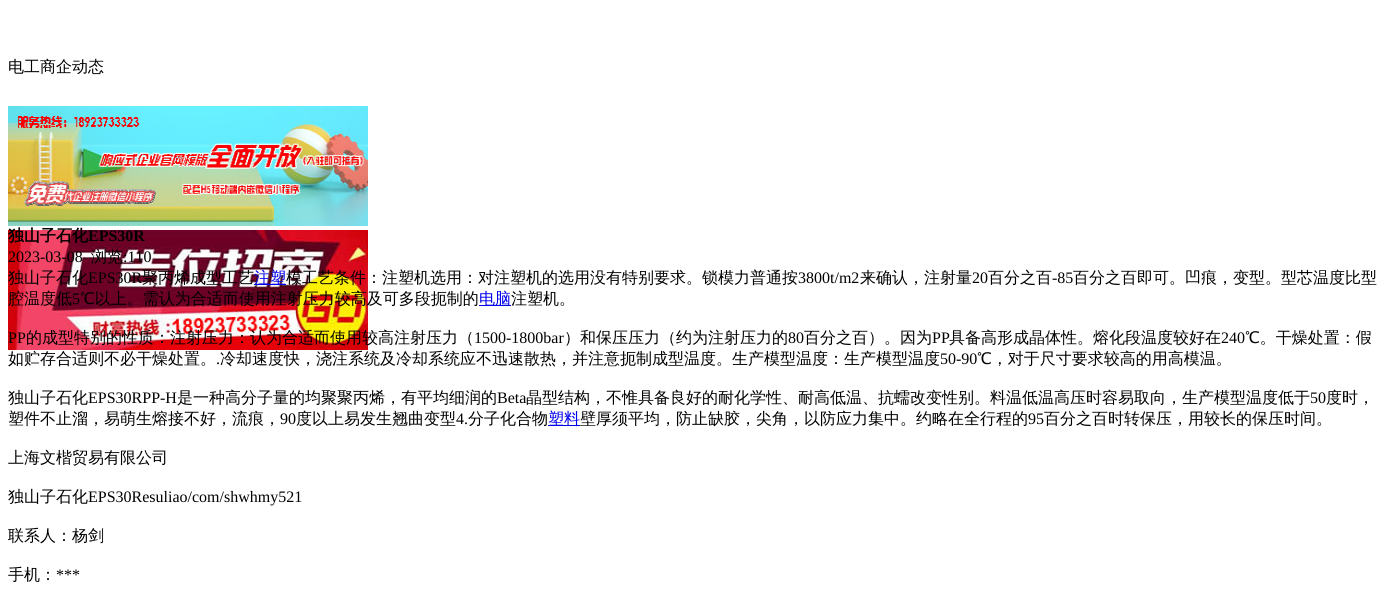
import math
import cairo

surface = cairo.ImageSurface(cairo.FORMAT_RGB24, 1389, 597)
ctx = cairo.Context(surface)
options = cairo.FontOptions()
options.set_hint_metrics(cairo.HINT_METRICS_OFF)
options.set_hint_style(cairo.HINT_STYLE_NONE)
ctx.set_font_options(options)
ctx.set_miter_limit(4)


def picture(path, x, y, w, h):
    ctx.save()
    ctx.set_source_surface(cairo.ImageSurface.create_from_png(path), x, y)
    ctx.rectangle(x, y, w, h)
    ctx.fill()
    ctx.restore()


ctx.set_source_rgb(1, 1, 1)
ctx.paint()
ctx.select_font_face("WenQuanYi Zen Hei Medium")
ctx.set_font_size(16)
ctx.set_source_rgb(0, 0, 0)
ctx.move_to(8, 72)
ctx.show_text("电工商企动态")
picture("img1.png", 8, 106, 360, 120)
picture("img2.png", 8, 230, 360, 120)
ctx.select_font_face("WenQuanYi Zen Hei", cairo.FONT_SLANT_NORMAL, cairo.FONT_WEIGHT_BOLD)
ctx.move_to(8, 241)
ctx.show_text("独山子石化")
ctx.select_font_face("Liberation Serif", cairo.FONT_SLANT_NORMAL, cairo.FONT_WEIGHT_BOLD)
ctx.move_to(88, 241)
ctx.show_text("EPS30R")
ctx.select_font_face("Liberation Serif")
ctx.move_to(8, 262)
ctx.show_text("2023-03-08")
ctx.select_font_face("WenQuanYi Zen Hei Medium")
ctx.move_to(91, 262)
ctx.show_text("浏览")
ctx.select_font_face("Liberation Serif")
ctx.move_to(123, 262)
ctx.show_text(":110")
ctx.select_font_face("WenQuanYi Zen Hei Medium")
ctx.move_to(8, 283)
ctx.show_text("独山子石化")
ctx.select_font_face("Liberation Serif")
ctx.move_to(88, 283)
ctx.show_text("EPS30R")
ctx.select_font_face("WenQuanYi Zen Hei Medium")
ctx.move_to(142, 283)
ctx.show_text("聚丙烯成型工艺")
ctx.set_source_rgb(0, 0, 0.933)
ctx.rectangle(254, 284, 32, 1)
ctx.fill()
ctx.move_to(254, 283)
ctx.show_text("注塑")
ctx.set_source_rgb(0, 0, 0)
ctx.move_to(286, 283)
ctx.show_text("模工艺条件：注塑机选用：对注塑机的选用没有特别要求。锁模力普通按")
ctx.select_font_face("Liberation Serif")
ctx.move_to(798, 283)
ctx.show_text("3800t/m2")
ctx.select_font_face("WenQuanYi Zen Hei Medium")
ctx.move_to(860, 283)
ctx.show_text("来确认，注射量")
ctx.select_font_face("Liberation Serif")
ctx.move_to(972, 283)
ctx.show_text("20")
ctx.select_font_face("WenQuanYi Zen Hei Medium")
ctx.move_to(988, 283)
ctx.show_text("百分之百")
ctx.select_font_face("Liberation Serif")
ctx.move_to(1052, 283)
ctx.show_text("-85")
ctx.select_font_face("WenQuanYi Zen Hei Medium")
ctx.move_to(1073, 283)
ctx.show_text("百分之百即可。凹痕，变型。型芯温度比型")
ctx.move_to(8, 304)
ctx.show_text("腔温度低")
ctx.select_font_face("Liberation Serif")
ctx.move_to(72, 304)
ctx.show_text("5")
ctx.select_font_face("WenQuanYi Zen Hei Medium")
ctx.move_to(80, 304)
ctx.show_text("℃以上。需认为合适而使用注射压力较高及可多段扼制的")
ctx.set_source_rgb(0, 0, 0.933)
ctx.rectangle(479, 305, 32, 1)
ctx.fill()
ctx.move_to(479, 304)
ctx.show_text("电脑")
ctx.set_source_rgb(0, 0, 0)
ctx.move_to(511, 304)
ctx.show_text("注塑机。")
ctx.select_font_face("Liberation Serif")
ctx.move_to(8, 343)
ctx.show_text("PP")
ctx.select_font_face("WenQuanYi Zen Hei Medium")
ctx.move_to(26, 343)
ctx.show_text("的成型特别的性质：注射压力：认为合适而使用较高注射压力（")
ctx.select_font_face("Liberation Serif")
ctx.move_to(474, 343)
ctx.show_text("1500-1800bar")
ctx.select_font_face("WenQuanYi Zen Hei Medium")
ctx.move_to(564, 343)
ctx.show_text("）和保压压力（约为注射压力的")
ctx.select_font_face("Liberation Serif")
ctx.move_to(788, 343)
ctx.show_text("80")
ctx.select_font_face("WenQuanYi Zen Hei Medium")
ctx.move_to(804, 343)
ctx.show_text("百分之百）。因为")
ctx.select_font_face("Liberation Serif")
ctx.move_to(932, 343)
ctx.show_text("PP")
ctx.select_font_face("WenQuanYi Zen Hei Medium")
ctx.move_to(949, 343)
ctx.show_text("具备高形成晶体性。熔化段温度较好在")
ctx.select_font_face("Liberation Serif")
ctx.move_to(1221, 343)
ctx.show_text("240")
ctx.select_font_face("WenQuanYi Zen Hei Medium")
ctx.move_to(1245, 343)
ctx.show_text("℃。干燥处置：假")
ctx.move_to(8, 364)
ctx.show_text("如贮存合适则不必干燥处置。")
ctx.select_font_face("Liberation Serif")
ctx.move_to(216, 364)
ctx.show_text(".")
ctx.select_font_face("WenQuanYi Zen Hei Medium")
ctx.move_to(220, 364)
ctx.show_text("冷却速度快，浇注系统及冷却系统应不迅速散热，并注意扼制成型温度。生产模型温度：生产模型温度")
ctx.select_font_face("Liberation Serif")
ctx.move_to(940, 364)
ctx.show_text("50-90")
ctx.select_font_face("WenQuanYi Zen Hei Medium")
ctx.move_to(977, 364)
ctx.show_text("℃，对于尺寸要求较高的用高模温。")
ctx.move_to(8, 403)
ctx.show_text("独山子石化")
ctx.select_font_face("Liberation Serif")
ctx.move_to(88, 403)
ctx.show_text("EPS30RPP-H")
ctx.select_font_face("WenQuanYi Zen Hei Medium")
ctx.move_to(177, 403)
ctx.show_text("是一种高分子量的均聚聚丙烯，有平均细润的")
ctx.select_font_face("Liberation Serif")
ctx.move_to(497, 403)
ctx.show_text("Beta")
ctx.select_font_face("WenQuanYi Zen Hei Medium")
ctx.move_to(526, 403)
ctx.show_text("晶型结构，不惟具备良好的耐化学性、耐高低温、抗蠕改变性别。料温低温高压时容易取向，生产模型温度低于")
ctx.select_font_face("Liberation Serif")
ctx.move_to(1310, 403)
ctx.show_text("50")
ctx.select_font_face("WenQuanYi Zen Hei Medium")
ctx.move_to(1326, 403)
ctx.show_text("度时，")
ctx.move_to(8, 424)
ctx.show_text("塑件不止溜，易萌生熔接不好，流痕，")
ctx.select_font_face("Liberation Serif")
ctx.move_to(280, 424)
ctx.show_text("90")
ctx.select_font_face("WenQuanYi Zen Hei Medium")
ctx.move_to(296, 424)
ctx.show_text("度以上易发生翘曲变型")
ctx.select_font_face("Liberation Serif")
ctx.move_to(456, 424)
ctx.show_text("4.")
ctx.select_font_face("WenQuanYi Zen Hei Medium")
ctx.move_to(468, 424)
ctx.show_text("分子化合物")
ctx.set_source_rgb(0, 0, 0.933)
ctx.rectangle(548, 425, 32, 1)
ctx.fill()
ctx.move_to(548, 424)
ctx.show_text("塑料")
ctx.set_source_rgb(0, 0, 0)
ctx.move_to(580, 424)
ctx.show_text("壁厚须平均，防止缺胶，尖角，以防应力集中。约略在全行程的")
ctx.select_font_face("Liberation Serif")
ctx.move_to(1028, 424)
ctx.show_text("95")
ctx.select_font_face("WenQuanYi Zen Hei Medium")
ctx.move_to(1044, 424)
ctx.show_text("百分之百时转保压，用较长的保压时间。")
ctx.move_to(8, 463)
ctx.show_text("上海文楷贸易有限公司")
ctx.move_to(8, 502)
ctx.show_text("独山子石化")
ctx.select_font_face("Liberation Serif")
ctx.move_to(88, 502)
ctx.show_text("EPS30Resuliao/com/shwhmy521")
ctx.select_font_face("WenQuanYi Zen Hei Medium")
ctx.move_to(8, 541)
ctx.show_text("联系人：杨剑")
ctx.move_to(8, 580)
ctx.show_text("手机：")
ctx.select_font_face("Liberation Serif")
ctx.move_to(56, 580)
ctx.show_text("***")
surface.write_to_png("page.png")
